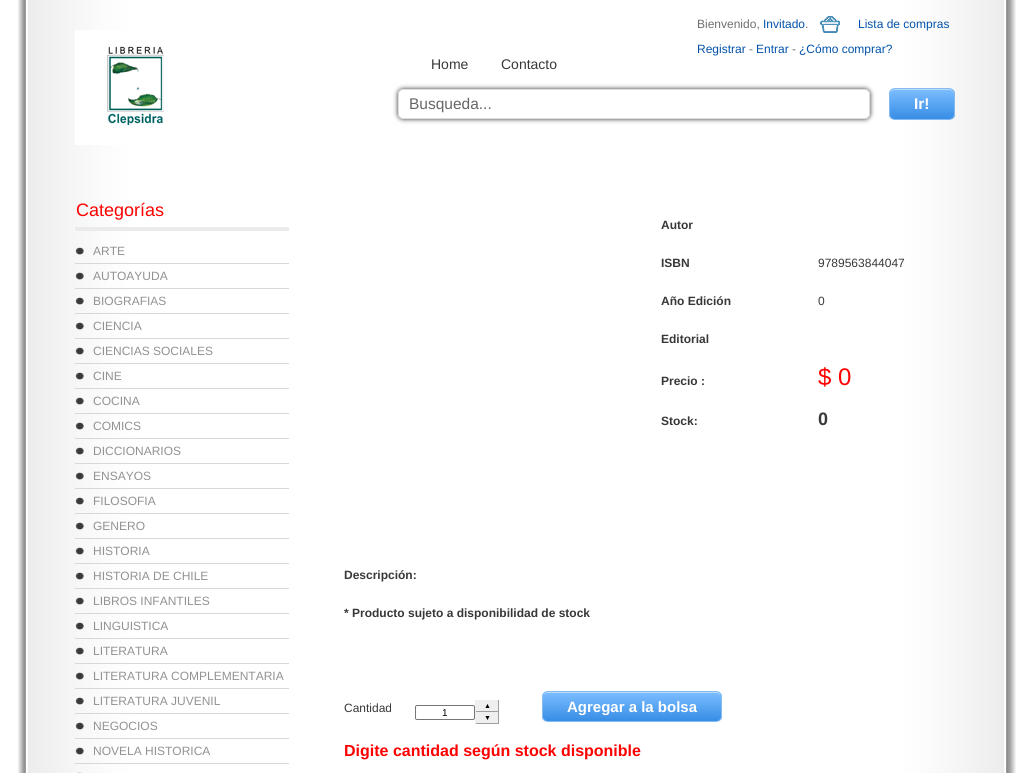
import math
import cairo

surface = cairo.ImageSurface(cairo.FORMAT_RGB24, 1033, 773)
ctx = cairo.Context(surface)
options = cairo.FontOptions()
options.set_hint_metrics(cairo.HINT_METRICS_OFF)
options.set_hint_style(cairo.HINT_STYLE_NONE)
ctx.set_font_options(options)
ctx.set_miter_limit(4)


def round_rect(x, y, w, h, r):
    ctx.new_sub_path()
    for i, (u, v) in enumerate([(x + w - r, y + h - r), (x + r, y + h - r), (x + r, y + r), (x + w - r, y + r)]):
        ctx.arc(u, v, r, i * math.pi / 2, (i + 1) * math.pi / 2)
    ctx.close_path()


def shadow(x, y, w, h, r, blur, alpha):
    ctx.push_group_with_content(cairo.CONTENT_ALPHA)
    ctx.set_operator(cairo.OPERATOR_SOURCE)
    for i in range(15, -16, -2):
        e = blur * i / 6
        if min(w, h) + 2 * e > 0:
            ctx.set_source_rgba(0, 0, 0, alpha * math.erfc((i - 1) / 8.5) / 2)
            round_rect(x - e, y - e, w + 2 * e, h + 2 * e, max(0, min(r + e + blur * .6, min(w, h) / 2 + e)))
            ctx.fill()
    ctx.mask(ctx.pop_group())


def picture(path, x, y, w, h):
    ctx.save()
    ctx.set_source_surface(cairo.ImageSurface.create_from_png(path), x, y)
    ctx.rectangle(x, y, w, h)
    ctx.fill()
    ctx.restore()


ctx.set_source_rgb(1, 1, 1)
ctx.paint()
picture("img1.png", 18, 0, 998, 145)
picture("img2.png", 75, 30, 89, 115)
ctx.select_font_face("Liberation Sans")
ctx.set_font_size(12)
ctx.set_source_rgb(0.439, 0.439, 0.439)
ctx.move_to(697, 28)
ctx.show_text("Bienvenido,")
ctx.set_source_rgb(0.008, 0.322, 0.667)
ctx.move_to(763, 28)
ctx.show_text("Invitado")
ctx.set_source_rgb(0.439, 0.439, 0.439)
ctx.move_to(805, 28)
ctx.show_text(".")
picture("img3.png", 820, 16, 20, 17)
ctx.set_source_rgb(0.008, 0.322, 0.667)
ctx.move_to(858, 28)
ctx.show_text("Lista de compras")
ctx.move_to(697, 53)
ctx.show_text("Registrar")
ctx.set_source_rgb(0.439, 0.439, 0.439)
ctx.move_to(749, 53)
ctx.show_text("-")
ctx.set_source_rgb(0.008, 0.322, 0.667)
ctx.move_to(756, 53)
ctx.show_text("Entrar")
ctx.set_source_rgb(0.439, 0.439, 0.439)
ctx.move_to(792, 53)
ctx.show_text("-")
ctx.set_source_rgb(0.008, 0.322, 0.667)
ctx.move_to(799, 53)
ctx.show_text("¿Cómo comprar?")
ctx.set_font_size(14)
ctx.set_source_rgb(0.22, 0.22, 0.22)
ctx.move_to(431, 69)
ctx.show_text("Home")
ctx.move_to(501, 69)
ctx.show_text("Contacto")
ctx.set_source_rgb(0.2, 0.2, 0.2)
shadow(398, 89, 472, 30, 5, 2.5, 1)
ctx.set_source_rgb(1, 1, 1)
round_rect(398.5, 89.5, 471, 29, 4.5)
ctx.fill_preserve()
ctx.set_source_rgb(0.867, 0.867, 0.867)
ctx.set_line_width(1)
ctx.stroke()
ctx.set_font_size(15.5)
ctx.set_source_rgb(0.4, 0.4, 0.4)
ctx.move_to(409, 109)
ctx.show_text("Busqueda...")
ctx.save()
round_rect(889, 88, 66, 32, 6)
ctx.clip()
gradient = cairo.LinearGradient(890, 89, 890, 119)
gradient.add_color_stop_rgba(0.05, 0.475, 0.733, 1, 1)
gradient.add_color_stop_rgba(1, 0.216, 0.553, 0.898, 1)
ctx.set_source(gradient)
ctx.rectangle(889, 89, 66, 30)
ctx.fill()
ctx.restore()
ctx.set_source_rgb(0.733, 0.855, 0.969)
ctx.new_path()
ctx.move_to(895, 90)
ctx.line_to(949, 90)
ctx.curve_to(952, 90, 954, 92, 954, 95)
ctx.curve_to(954, 87, 946, 89, 940, 89)
ctx.line_to(904, 89)
ctx.curve_to(898, 89, 890, 87, 890, 95)
ctx.curve_to(890, 92, 892, 90, 895, 90)
ctx.close_path()
ctx.fill()
round_rect(889.5, 88.5, 65, 31, 5.5)
ctx.set_source_rgb(0.518, 0.733, 0.953)
ctx.stroke()
ctx.select_font_face("Liberation Sans", cairo.FONT_SLANT_NORMAL, cairo.FONT_WEIGHT_BOLD)
ctx.set_source_rgb(1, 1, 1)
ctx.move_to(914, 109)
ctx.show_text("Ir!")
picture("img4.png", 18, 145, 998, 628)
ctx.set_source_rgb(0.918, 0.918, 0.918)
ctx.rectangle(75, 227, 214, 4)
ctx.fill()
ctx.select_font_face("Liberation Sans")
ctx.set_font_size(18)
ctx.set_source_rgb(1, 0, 0)
ctx.move_to(76, 216)
ctx.show_text("Categorías")
picture("img5.png", 75, 247, 9, 8)
ctx.set_source_rgb(0.847, 0.847, 0.847)
ctx.rectangle(75, 263, 214, 1)
ctx.fill()
ctx.set_font_size(12)
ctx.set_source_rgb(0.573, 0.573, 0.573)
ctx.move_to(93, 255)
ctx.show_text("ARTE")
picture("img5.png", 75, 272, 9, 8)
ctx.set_source_rgb(0.847, 0.847, 0.847)
ctx.rectangle(75, 288, 214, 1)
ctx.fill()
ctx.set_source_rgb(0.573, 0.573, 0.573)
ctx.move_to(93, 280)
ctx.show_text("AUTOAYUDA")
picture("img5.png", 75, 297, 9, 8)
ctx.set_source_rgb(0.847, 0.847, 0.847)
ctx.rectangle(75, 313, 214, 1)
ctx.fill()
ctx.set_source_rgb(0.573, 0.573, 0.573)
ctx.move_to(93, 305)
ctx.show_text("BIOGRAFIAS")
picture("img5.png", 75, 322, 9, 8)
ctx.set_source_rgb(0.847, 0.847, 0.847)
ctx.rectangle(75, 338, 214, 1)
ctx.fill()
ctx.set_source_rgb(0.573, 0.573, 0.573)
ctx.move_to(93, 330)
ctx.show_text("CIENCIA")
picture("img5.png", 75, 347, 9, 8)
ctx.set_source_rgb(0.847, 0.847, 0.847)
ctx.rectangle(75, 363, 214, 1)
ctx.fill()
ctx.set_source_rgb(0.573, 0.573, 0.573)
ctx.move_to(93, 355)
ctx.show_text("CIENCIAS SOCIALES")
picture("img5.png", 75, 372, 9, 8)
ctx.set_source_rgb(0.847, 0.847, 0.847)
ctx.rectangle(75, 388, 214, 1)
ctx.fill()
ctx.set_source_rgb(0.573, 0.573, 0.573)
ctx.move_to(93, 380)
ctx.show_text("CINE")
picture("img5.png", 75, 397, 9, 8)
ctx.set_source_rgb(0.847, 0.847, 0.847)
ctx.rectangle(75, 413, 214, 1)
ctx.fill()
ctx.set_source_rgb(0.573, 0.573, 0.573)
ctx.move_to(93, 405)
ctx.show_text("COCINA")
picture("img5.png", 75, 422, 9, 8)
ctx.set_source_rgb(0.847, 0.847, 0.847)
ctx.rectangle(75, 438, 214, 1)
ctx.fill()
ctx.set_source_rgb(0.573, 0.573, 0.573)
ctx.move_to(93, 430)
ctx.show_text("COMICS")
picture("img5.png", 75, 447, 9, 8)
ctx.set_source_rgb(0.847, 0.847, 0.847)
ctx.rectangle(75, 463, 214, 1)
ctx.fill()
ctx.set_source_rgb(0.573, 0.573, 0.573)
ctx.move_to(93, 455)
ctx.show_text("DICCIONARIOS")
picture("img5.png", 75, 472, 9, 8)
ctx.set_source_rgb(0.847, 0.847, 0.847)
ctx.rectangle(75, 488, 214, 1)
ctx.fill()
ctx.set_source_rgb(0.573, 0.573, 0.573)
ctx.move_to(93, 480)
ctx.show_text("ENSAYOS")
picture("img5.png", 75, 497, 9, 8)
ctx.set_source_rgb(0.847, 0.847, 0.847)
ctx.rectangle(75, 513, 214, 1)
ctx.fill()
ctx.set_source_rgb(0.573, 0.573, 0.573)
ctx.move_to(93, 505)
ctx.show_text("FILOSOFIA")
picture("img5.png", 75, 522, 9, 8)
ctx.set_source_rgb(0.847, 0.847, 0.847)
ctx.rectangle(75, 538, 214, 1)
ctx.fill()
ctx.set_source_rgb(0.573, 0.573, 0.573)
ctx.move_to(93, 530)
ctx.show_text("GENERO")
picture("img5.png", 75, 547, 9, 8)
ctx.set_source_rgb(0.847, 0.847, 0.847)
ctx.rectangle(75, 563, 214, 1)
ctx.fill()
ctx.set_source_rgb(0.573, 0.573, 0.573)
ctx.move_to(93, 555)
ctx.show_text("HISTORIA")
picture("img5.png", 75, 572, 9, 8)
ctx.set_source_rgb(0.847, 0.847, 0.847)
ctx.rectangle(75, 588, 214, 1)
ctx.fill()
ctx.set_source_rgb(0.573, 0.573, 0.573)
ctx.move_to(93, 580)
ctx.show_text("HISTORIA DE CHILE")
picture("img5.png", 75, 597, 9, 8)
ctx.set_source_rgb(0.847, 0.847, 0.847)
ctx.rectangle(75, 613, 214, 1)
ctx.fill()
ctx.set_source_rgb(0.573, 0.573, 0.573)
ctx.move_to(93, 605)
ctx.show_text("LIBROS INFANTILES")
picture("img5.png", 75, 622, 9, 8)
ctx.set_source_rgb(0.847, 0.847, 0.847)
ctx.rectangle(75, 638, 214, 1)
ctx.fill()
ctx.set_source_rgb(0.573, 0.573, 0.573)
ctx.move_to(93, 630)
ctx.show_text("LINGUISTICA")
picture("img5.png", 75, 647, 9, 8)
ctx.set_source_rgb(0.847, 0.847, 0.847)
ctx.rectangle(75, 663, 214, 1)
ctx.fill()
ctx.set_source_rgb(0.573, 0.573, 0.573)
ctx.move_to(93, 655)
ctx.show_text("LITERATURA")
picture("img5.png", 75, 672, 9, 8)
ctx.set_source_rgb(0.847, 0.847, 0.847)
ctx.rectangle(75, 688, 214, 1)
ctx.fill()
ctx.set_source_rgb(0.573, 0.573, 0.573)
ctx.move_to(93, 680)
ctx.show_text("LITERATURA COMPLEMENTARIA")
picture("img5.png", 75, 697, 9, 8)
ctx.set_source_rgb(0.847, 0.847, 0.847)
ctx.rectangle(75, 713, 214, 1)
ctx.fill()
ctx.set_source_rgb(0.573, 0.573, 0.573)
ctx.move_to(93, 705)
ctx.show_text("LITERATURA JUVENIL")
picture("img5.png", 75, 722, 9, 8)
ctx.set_source_rgb(0.847, 0.847, 0.847)
ctx.rectangle(75, 738, 214, 1)
ctx.fill()
ctx.set_source_rgb(0.573, 0.573, 0.573)
ctx.move_to(93, 730)
ctx.show_text("NEGOCIOS")
picture("img5.png", 75, 747, 9, 8)
ctx.set_source_rgb(0.847, 0.847, 0.847)
ctx.rectangle(75, 763, 214, 1)
ctx.fill()
ctx.set_source_rgb(0.573, 0.573, 0.573)
ctx.move_to(93, 755)
ctx.show_text("NOVELA HISTORICA")
picture("img6.png", 78, 772, 4, 1)
ctx.select_font_face("Liberation Sans", cairo.FONT_SLANT_NORMAL, cairo.FONT_WEIGHT_BOLD)
ctx.set_source_rgb(0.22, 0.22, 0.22)
ctx.move_to(661, 229)
ctx.show_text("Autor")
ctx.move_to(661, 267)
ctx.show_text("ISBN")
ctx.select_font_face("Liberation Sans")
ctx.move_to(818, 267)
ctx.show_text("9789563844047")
ctx.select_font_face("Liberation Sans", cairo.FONT_SLANT_NORMAL, cairo.FONT_WEIGHT_BOLD)
ctx.move_to(661, 305)
ctx.show_text("Año Edición")
ctx.select_font_face("Liberation Sans")
ctx.move_to(818, 305)
ctx.show_text("0")
ctx.select_font_face("Liberation Sans", cairo.FONT_SLANT_NORMAL, cairo.FONT_WEIGHT_BOLD)
ctx.move_to(661, 343)
ctx.show_text("Editorial")
ctx.move_to(661, 385)
ctx.show_text("Precio :")
ctx.select_font_face("Liberation Sans")
ctx.set_font_size(24)
ctx.set_source_rgb(1, 0, 0)
ctx.move_to(818, 385)
ctx.show_text("$ 0")
ctx.select_font_face("Liberation Sans", cairo.FONT_SLANT_NORMAL, cairo.FONT_WEIGHT_BOLD)
ctx.set_font_size(12)
ctx.set_source_rgb(0.22, 0.22, 0.22)
ctx.move_to(661, 425)
ctx.show_text("Stock:")
ctx.set_font_size(18)
ctx.move_to(818, 425)
ctx.show_text("0")
ctx.set_font_size(12)
ctx.move_to(344, 579)
ctx.show_text("Descripción:")
ctx.move_to(344, 617)
ctx.show_text("* Producto sujeto a disponibilidad de stock")
ctx.select_font_face("Liberation Sans")
ctx.move_to(344, 712)
ctx.show_text("Cantidad")
ctx.set_source_rgb(0.937, 0.937, 0.937)
ctx.rectangle(476, 700, 22, 11)
ctx.fill()
ctx.set_source_rgb(0.624, 0.624, 0.624)
ctx.rectangle(498, 700, 1, 24)
ctx.fill()
ctx.rectangle(475, 711, 24, 1)
ctx.fill()
ctx.set_source_rgb(0.933, 0.933, 0.933)
ctx.rectangle(475, 700, 1, 12)
ctx.fill()
ctx.select_font_face("Liberation Sans", cairo.FONT_SLANT_NORMAL, cairo.FONT_WEIGHT_BOLD)
ctx.set_font_size(7)
ctx.set_source_rgb(0, 0, 0)
ctx.move_to(484, 708)
ctx.show_text("▲")
round_rect(415.5, 705.5, 59, 14, 1.5)
ctx.set_source_rgb(0.463, 0.463, 0.463)
ctx.stroke()
ctx.select_font_face("Liberation Sans")
ctx.set_font_size(10)
ctx.set_source_rgb(0, 0, 0)
ctx.move_to(442, 716)
ctx.show_text("1")
ctx.set_source_rgb(0.937, 0.937, 0.937)
ctx.rectangle(476, 712, 22, 11)
ctx.fill()
ctx.set_source_rgb(0.624, 0.624, 0.624)
ctx.rectangle(475, 723, 24, 1)
ctx.fill()
ctx.set_source_rgb(0.933, 0.933, 0.933)
ctx.rectangle(475, 712, 1, 12)
ctx.fill()
ctx.select_font_face("Liberation Sans", cairo.FONT_SLANT_NORMAL, cairo.FONT_WEIGHT_BOLD)
ctx.set_font_size(7)
ctx.set_source_rgb(0, 0, 0)
ctx.move_to(484, 720)
ctx.show_text("▼")
ctx.save()
round_rect(542, 691, 180, 31, 6)
ctx.clip()
gradient = cairo.LinearGradient(543, 692, 543, 721)
gradient.add_color_stop_rgba(0.05, 0.475, 0.733, 1, 1)
gradient.add_color_stop_rgba(1, 0.216, 0.553, 0.898, 1)
ctx.set_source(gradient)
ctx.rectangle(542, 692, 180, 29)
ctx.fill()
ctx.restore()
ctx.set_source_rgb(0.733, 0.855, 0.969)
ctx.new_path()
ctx.move_to(548, 693)
ctx.line_to(716, 693)
ctx.curve_to(719, 693, 721, 695, 721, 698)
ctx.curve_to(721, 695, 720, 693, 717, 692)
ctx.line_to(576, 692)
ctx.curve_to(567, 692, 544, 687, 543, 697)
ctx.line_to(543, 698)
ctx.curve_to(543, 695, 545, 693, 548, 693)
ctx.close_path()
ctx.fill()
round_rect(542.5, 691.5, 179, 30, 5.5)
ctx.set_source_rgb(0.518, 0.733, 0.953)
ctx.stroke()
ctx.set_font_size(15)
ctx.set_source_rgb(1, 1, 1)
ctx.move_to(567, 712)
ctx.show_text("Agregar a la bolsa")
ctx.set_font_size(16)
ctx.set_source_rgb(1, 0, 0)
ctx.move_to(344, 756)
ctx.show_text("Digite cantidad según stock disponible")
surface.write_to_png("page.png")
